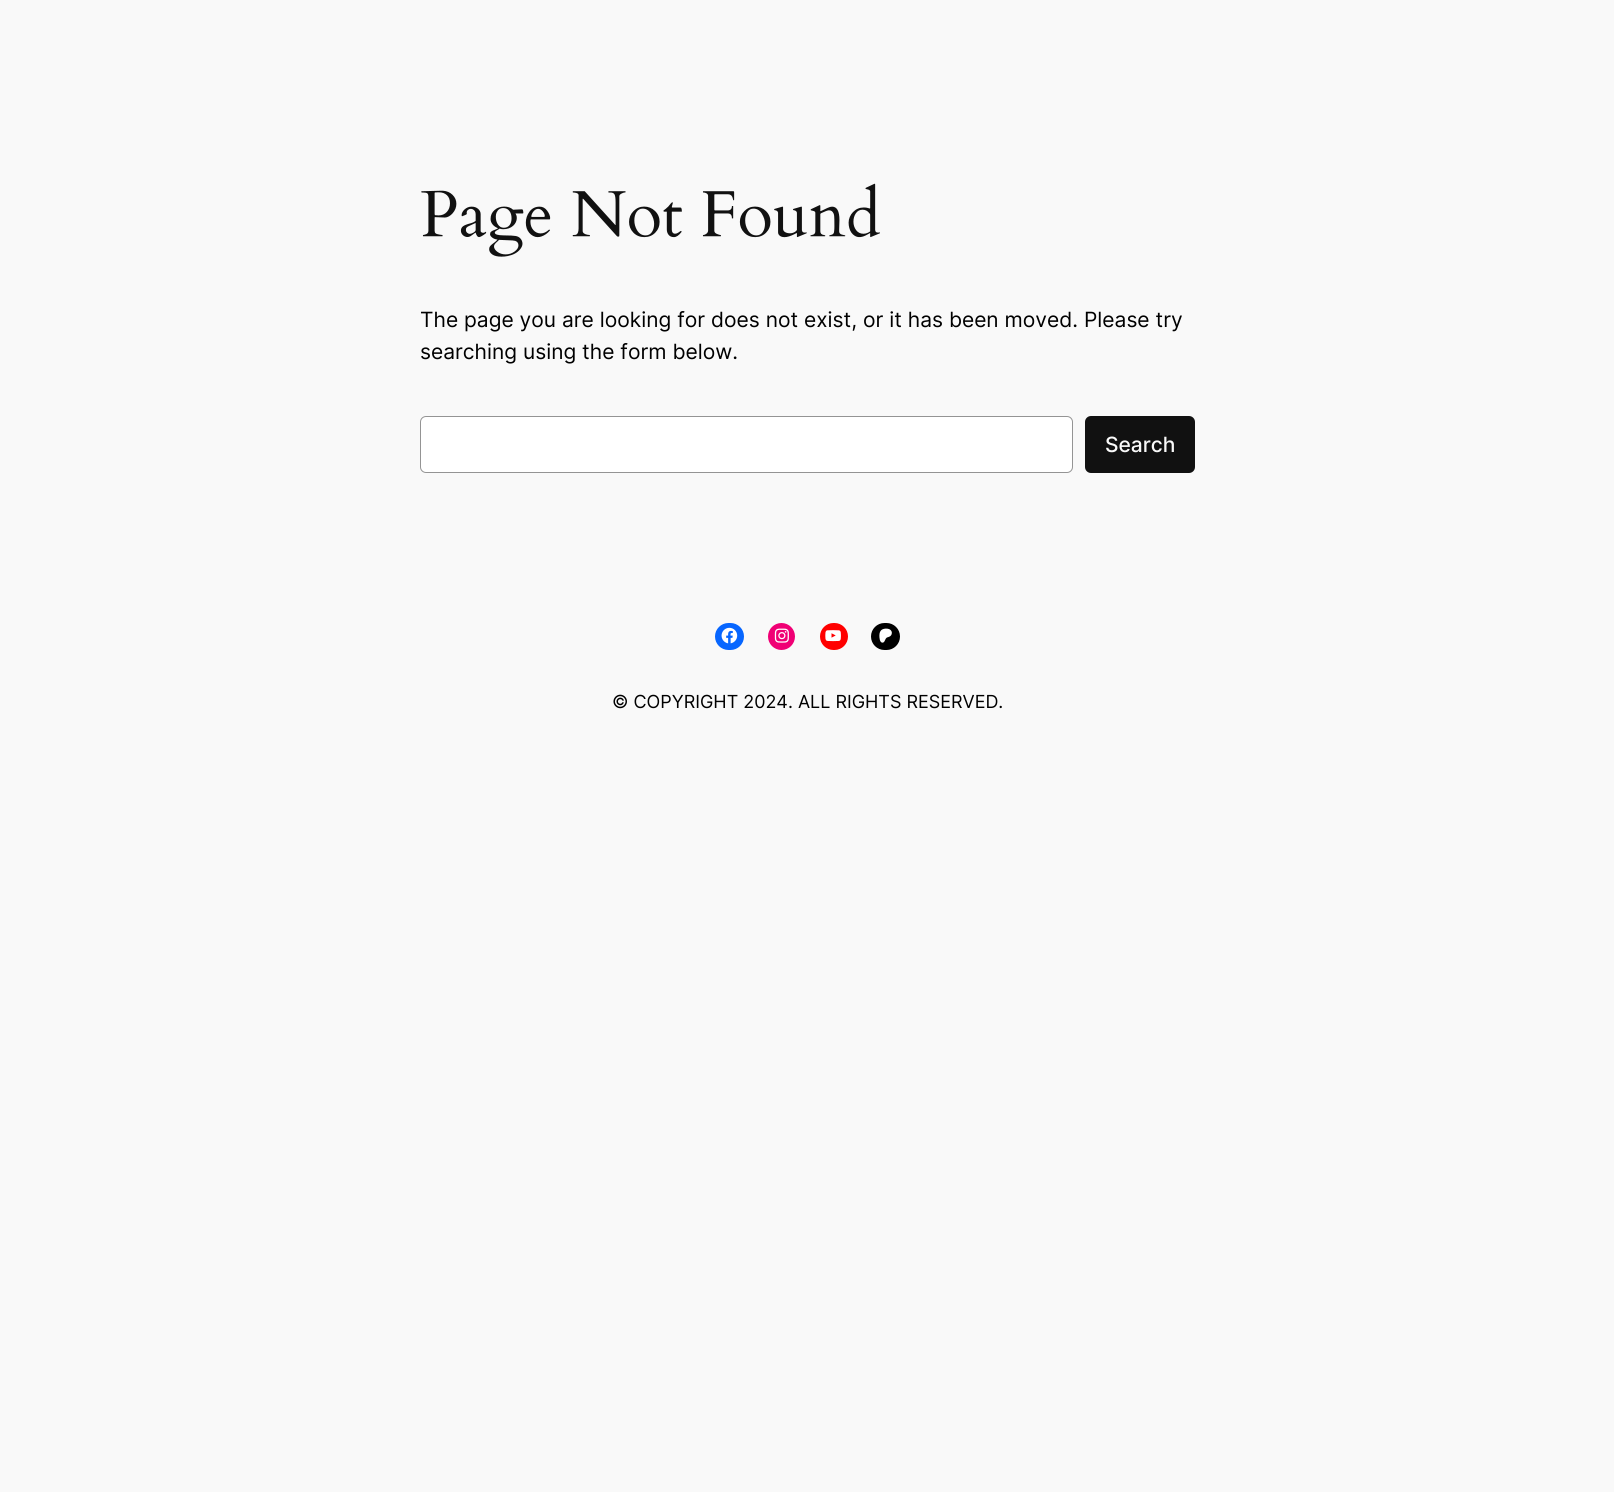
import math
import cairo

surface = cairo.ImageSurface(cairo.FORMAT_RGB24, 1614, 1492)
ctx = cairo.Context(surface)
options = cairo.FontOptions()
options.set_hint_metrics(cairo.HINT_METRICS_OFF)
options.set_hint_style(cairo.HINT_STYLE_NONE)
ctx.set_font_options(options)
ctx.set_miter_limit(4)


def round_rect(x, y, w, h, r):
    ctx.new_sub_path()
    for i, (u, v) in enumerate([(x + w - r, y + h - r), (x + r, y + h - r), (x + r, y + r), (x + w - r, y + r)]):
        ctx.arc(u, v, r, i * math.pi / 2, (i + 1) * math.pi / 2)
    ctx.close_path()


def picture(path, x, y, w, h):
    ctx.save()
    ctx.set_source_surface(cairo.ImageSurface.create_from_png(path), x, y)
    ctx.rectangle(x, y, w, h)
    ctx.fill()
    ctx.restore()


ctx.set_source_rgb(0.976, 0.976, 0.976)
ctx.paint()
picture("img1.png", 421, 183, 459, 74)
ctx.select_font_face("Inter")
ctx.set_font_size(21)
ctx.set_source_rgb(0, 0, 0)
ctx.move_to(420, 327)
ctx.show_text("The page you are looking for does not exist, or it has been moved. Please try")
ctx.move_to(420, 359)
ctx.show_text("searching using the form below.")
ctx.set_source_rgb(1, 1, 1)
round_rect(420.5, 416.5, 652, 56, 5.5)
ctx.fill_preserve()
ctx.set_source_rgb(0.58, 0.58, 0.58)
ctx.set_line_width(1)
ctx.stroke()
ctx.set_source_rgb(0.067, 0.067, 0.067)
round_rect(1085, 416, 110, 57, 6)
ctx.fill()
ctx.select_font_face("Inter Medium")
ctx.set_source_rgb(0.976, 0.976, 0.976)
ctx.move_to(1105, 452)
ctx.show_text("Search")
ctx.set_source_rgb(0.031, 0.4, 1)
round_rect(715, 623, 29, 27, 13.5)
ctx.fill()
picture("img2.png", 721, 627, 17, 17)
ctx.set_source_rgb(0.941, 0, 0.459)
ctx.arc(781.5, 636.5, 13.5, 0, 2 * math.pi)
ctx.fill()
picture("img3.png", 774, 628, 15, 15)
ctx.set_source_rgb(1, 0, 0)
round_rect(820, 623, 28, 27, 13.5)
ctx.fill()
picture("img4.png", 825, 630, 16, 12)
ctx.set_source_rgb(0, 0, 0)
round_rect(871, 623, 29, 27, 13.5)
ctx.fill()
picture("img5.png", 879, 628, 13, 15)
ctx.select_font_face("Inter")
ctx.set_font_size(18)
ctx.move_to(612, 708)
ctx.show_text("© COPYRIGHT 2024. ALL RIGHTS RESERVED.")
surface.write_to_png("page.png")
